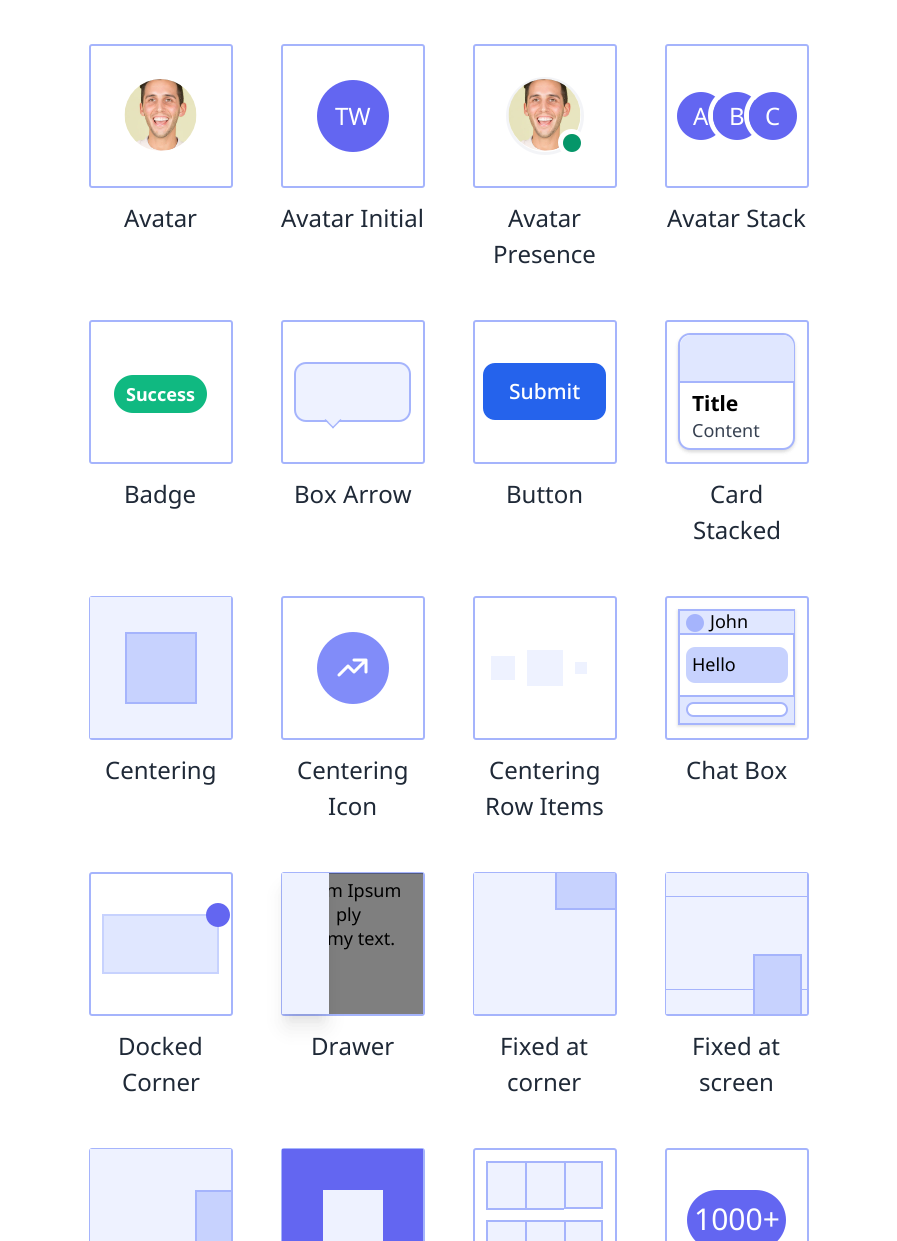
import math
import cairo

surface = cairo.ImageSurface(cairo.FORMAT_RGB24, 897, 1241)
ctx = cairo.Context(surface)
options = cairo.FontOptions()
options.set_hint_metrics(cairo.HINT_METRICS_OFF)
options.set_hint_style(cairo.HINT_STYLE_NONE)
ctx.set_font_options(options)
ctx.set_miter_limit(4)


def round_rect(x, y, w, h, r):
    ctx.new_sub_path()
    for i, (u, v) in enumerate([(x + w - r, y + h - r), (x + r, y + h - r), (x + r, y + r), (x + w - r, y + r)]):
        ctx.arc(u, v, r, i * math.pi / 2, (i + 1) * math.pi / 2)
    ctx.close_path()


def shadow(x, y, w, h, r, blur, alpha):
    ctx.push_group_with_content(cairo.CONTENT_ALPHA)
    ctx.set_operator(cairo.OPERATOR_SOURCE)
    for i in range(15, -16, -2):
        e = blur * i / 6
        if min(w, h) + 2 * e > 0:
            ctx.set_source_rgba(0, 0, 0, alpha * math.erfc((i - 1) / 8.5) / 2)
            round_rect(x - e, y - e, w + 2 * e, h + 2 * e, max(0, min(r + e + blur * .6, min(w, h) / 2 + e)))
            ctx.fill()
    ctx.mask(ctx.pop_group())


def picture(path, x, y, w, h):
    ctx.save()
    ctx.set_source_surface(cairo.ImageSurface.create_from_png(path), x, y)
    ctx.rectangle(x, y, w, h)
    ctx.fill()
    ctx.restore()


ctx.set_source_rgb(1, 1, 1)
ctx.paint()
round_rect(90, 45, 142, 142, 2)
ctx.set_source_rgb(0.647, 0.706, 0.988)
ctx.stroke()
picture("img1.png", 124, 79, 73, 72)
ctx.select_font_face("Noto Sans")
ctx.set_font_size(24)
ctx.set_source_rgb(0.122, 0.161, 0.216)
ctx.move_to(124, 227)
ctx.show_text("Avatar")
round_rect(282, 45, 142, 142, 2)
ctx.set_source_rgb(0.647, 0.706, 0.988)
ctx.stroke()
ctx.set_source_rgb(0.388, 0.4, 0.945)
ctx.arc(353, 116, 36, 0, 2 * math.pi)
ctx.fill()
ctx.set_source_rgb(1, 1, 1)
ctx.move_to(335, 125)
ctx.show_text("TW")
ctx.set_source_rgb(0.122, 0.161, 0.216)
ctx.move_to(281, 227)
ctx.show_text("Avatar Initial")
round_rect(474, 45, 142, 142, 2)
ctx.set_source_rgb(0.647, 0.706, 0.988)
ctx.stroke()
ctx.arc(545, 116, 37.5, 0, 2 * math.pi)
ctx.set_source_rgb(0.953, 0.957, 0.965)
ctx.set_line_width(3)
ctx.stroke()
picture("img2.png", 508, 79, 73, 72)
ctx.arc(571.5, 142.5, 11, 0, 2 * math.pi)
ctx.set_source_rgb(1, 1, 1)
ctx.set_line_width(5)
ctx.stroke()
ctx.set_source_rgb(0.02, 0.588, 0.412)
ctx.arc(572, 143, 9, 0, 2 * math.pi)
ctx.fill()
ctx.set_source_rgb(0.122, 0.161, 0.216)
ctx.move_to(508, 227)
ctx.show_text("Avatar")
ctx.move_to(493, 263)
ctx.show_text("Presence")
round_rect(666, 45, 142, 142, 2)
ctx.set_source_rgb(0.647, 0.706, 0.988)
ctx.set_line_width(2)
ctx.stroke()
ctx.set_source_rgb(0.388, 0.4, 0.945)
ctx.arc(701, 116, 24, 0, 2 * math.pi)
ctx.fill()
ctx.set_source_rgb(1, 1, 1)
ctx.move_to(693, 125)
ctx.show_text("A")
ctx.new_path()
ctx.arc(736.5, 115.5, 26, 0, 2 * math.pi)
ctx.set_line_width(5)
ctx.stroke()
ctx.set_source_rgb(0.388, 0.4, 0.945)
ctx.arc(737, 116, 24, 0, 2 * math.pi)
ctx.fill()
ctx.set_source_rgb(1, 1, 1)
ctx.move_to(729, 125)
ctx.show_text("B")
ctx.new_path()
ctx.arc(772.5, 115.5, 26, 0, 2 * math.pi)
ctx.stroke()
ctx.set_source_rgb(0.388, 0.4, 0.945)
ctx.arc(773, 116, 24, 0, 2 * math.pi)
ctx.fill()
ctx.set_source_rgb(1, 1, 1)
ctx.move_to(765, 125)
ctx.show_text("C")
ctx.set_source_rgb(0.122, 0.161, 0.216)
ctx.move_to(667, 227)
ctx.show_text("Avatar Stack")
round_rect(90, 321, 142, 142, 2)
ctx.set_source_rgb(0.647, 0.706, 0.988)
ctx.set_line_width(2)
ctx.stroke()
ctx.set_source_rgb(0.063, 0.725, 0.506)
round_rect(114, 375, 93, 38, 19)
ctx.fill()
ctx.select_font_face("Noto Sans", cairo.FONT_SLANT_NORMAL, cairo.FONT_WEIGHT_BOLD)
ctx.set_font_size(18)
ctx.set_source_rgb(1, 1, 1)
ctx.move_to(126, 401)
ctx.show_text("Success")
ctx.select_font_face("Noto Sans")
ctx.set_font_size(24)
ctx.set_source_rgb(0.122, 0.161, 0.216)
ctx.move_to(124, 503)
ctx.show_text("Badge")
round_rect(282, 321, 142, 142, 2)
ctx.set_source_rgb(0.647, 0.706, 0.988)
ctx.stroke()
ctx.set_source_rgb(0.933, 0.949, 1)
round_rect(295, 363, 115, 58, 11)
ctx.fill_preserve()
ctx.set_source_rgb(0.647, 0.706, 0.988)
ctx.stroke()
ctx.set_source_rgb(0.933, 0.949, 1)
ctx.new_path()
ctx.move_to(333, 411.5)
ctx.line_to(340.5, 419)
ctx.line_to(333, 426.5)
ctx.line_to(325.5, 419)
ctx.close_path()
ctx.fill()
ctx.set_source_rgb(0.647, 0.706, 0.988)
ctx.new_path()
ctx.move_to(340.5, 419)
ctx.line_to(341.5, 420)
ctx.line_to(333, 428.5)
ctx.line_to(332, 427.5)
ctx.close_path()
ctx.fill()
ctx.new_path()
ctx.move_to(325.5, 419)
ctx.line_to(334, 427.5)
ctx.line_to(333, 428.5)
ctx.line_to(324.5, 420)
ctx.close_path()
ctx.fill()
ctx.set_source_rgb(0.122, 0.161, 0.216)
ctx.move_to(294, 503)
ctx.show_text("Box Arrow")
round_rect(474, 321, 142, 142, 2)
ctx.set_source_rgb(0.647, 0.706, 0.988)
ctx.stroke()
ctx.set_source_rgb(0.145, 0.388, 0.922)
round_rect(483, 363, 123, 57, 12)
ctx.fill()
ctx.select_font_face("Noto Sans Medium")
ctx.set_font_size(21)
ctx.set_source_rgb(1, 1, 1)
ctx.move_to(509, 399)
ctx.show_text("Submit")
ctx.select_font_face("Noto Sans")
ctx.set_font_size(24)
ctx.set_source_rgb(0.122, 0.161, 0.216)
ctx.move_to(506, 503)
ctx.show_text("Button")
round_rect(666, 321, 142, 142, 2)
ctx.set_source_rgb(0.647, 0.706, 0.988)
ctx.stroke()
ctx.set_source_rgb(0, 0, 0)
shadow(678, 335, 117, 117, 12, 1.5, 0.06)
shadow(678, 335, 117, 117, 12, 2, 0.1)
ctx.set_source_rgb(1, 1, 1)
round_rect(679, 334, 115, 115, 11)
ctx.fill_preserve()
ctx.set_source_rgb(0.647, 0.706, 0.988)
ctx.stroke()
ctx.set_source_rgb(0.878, 0.906, 1)
ctx.new_path()
ctx.move_to(691, 335)
ctx.line_to(783, 335)
ctx.curve_to(789, 335, 794, 340, 794, 346)
ctx.line_to(794, 381)
ctx.line_to(680, 381)
ctx.line_to(680, 346)
ctx.curve_to(680, 340, 685, 335, 691, 335)
ctx.close_path()
ctx.fill()
ctx.set_source_rgb(0.647, 0.706, 0.988)
ctx.rectangle(680, 381, 114, 2)
ctx.fill()
ctx.select_font_face("Noto Sans", cairo.FONT_SLANT_NORMAL, cairo.FONT_WEIGHT_BOLD)
ctx.set_font_size(21)
ctx.set_source_rgb(0, 0, 0)
ctx.move_to(692, 411)
ctx.show_text("Title")
ctx.select_font_face("Noto Sans")
ctx.set_font_size(18)
ctx.set_source_rgb(0.216, 0.255, 0.318)
ctx.move_to(692, 437)
ctx.show_text("Content")
ctx.set_font_size(24)
ctx.set_source_rgb(0.122, 0.161, 0.216)
ctx.move_to(710, 503)
ctx.show_text("Card")
ctx.move_to(693, 539)
ctx.show_text("Stacked")
round_rect(90, 597, 142, 142, 2)
ctx.set_source_rgb(0.647, 0.706, 0.988)
ctx.stroke()
ctx.set_source_rgb(0.933, 0.949, 1)
ctx.rectangle(90, 597, 141, 141)
ctx.fill()
ctx.set_source_rgb(0.78, 0.824, 0.996)
ctx.rectangle(126, 633, 70, 70)
ctx.fill_preserve()
ctx.set_source_rgb(0.647, 0.706, 0.988)
ctx.stroke()
ctx.set_source_rgb(0.122, 0.161, 0.216)
ctx.move_to(105, 779)
ctx.show_text("Centering")
round_rect(282, 597, 142, 142, 2)
ctx.set_source_rgb(0.647, 0.706, 0.988)
ctx.stroke()
ctx.set_source_rgb(0.506, 0.549, 0.973)
ctx.arc(353, 668, 36, 0, 2 * math.pi)
ctx.fill()
ctx.new_path()
ctx.move_to(354, 660)
ctx.line_to(366, 660)
ctx.move_to(366, 660)
ctx.line_to(366, 672)
ctx.move_to(366, 660)
ctx.line_to(354, 672)
ctx.line_to(348, 666)
ctx.line_to(339, 675)
ctx.set_source_rgb(1, 1, 1)
ctx.set_line_width(3)
ctx.set_line_cap(cairo.LINE_CAP_ROUND)
ctx.set_line_join(cairo.LINE_JOIN_ROUND)
ctx.stroke()
ctx.set_source_rgb(0.122, 0.161, 0.216)
ctx.move_to(297, 779)
ctx.show_text("Centering")
ctx.move_to(328, 815)
ctx.show_text("Icon")
round_rect(474, 597, 142, 142, 2)
ctx.set_source_rgb(0.647, 0.706, 0.988)
ctx.set_line_width(2)
ctx.set_line_cap(cairo.LINE_CAP_BUTT)
ctx.set_line_join(cairo.LINE_JOIN_MITER)
ctx.stroke()
ctx.set_source_rgb(0.933, 0.949, 1)
ctx.rectangle(491, 656, 24, 24)
ctx.fill()
ctx.rectangle(527, 650, 36, 36)
ctx.fill()
ctx.rectangle(575, 662, 12, 12)
ctx.fill()
ctx.set_source_rgb(0.122, 0.161, 0.216)
ctx.move_to(489, 779)
ctx.show_text("Centering")
ctx.move_to(485, 815)
ctx.show_text("Row Items")
round_rect(666, 597, 142, 142, 2)
ctx.set_source_rgb(0.647, 0.706, 0.988)
ctx.stroke()
ctx.set_source_rgb(0, 0, 0)
shadow(678, 611, 117, 115, 0, 1.5, 0.06)
shadow(678, 611, 117, 115, 0, 2, 0.1)
ctx.set_source_rgb(1, 1, 1)
ctx.rectangle(680, 635, 113, 60)
ctx.fill()
ctx.rectangle(679, 610, 115, 114)
ctx.set_source_rgb(0.647, 0.706, 0.988)
ctx.stroke()
ctx.set_source_rgb(0.878, 0.906, 1)
ctx.rectangle(680, 611, 114, 22)
ctx.fill()
ctx.set_source_rgb(0.647, 0.706, 0.988)
ctx.rectangle(680, 633, 114, 2)
ctx.fill()
ctx.arc(695, 623, 9, 0, 2 * math.pi)
ctx.fill()
ctx.set_font_size(18)
ctx.set_source_rgb(0, 0, 0)
ctx.move_to(710, 628)
ctx.show_text("John")
ctx.set_source_rgb(0.78, 0.824, 0.996)
round_rect(686, 647, 102, 36, 9)
ctx.fill()
ctx.set_source_rgb(0, 0, 0)
ctx.move_to(692, 671)
ctx.show_text("Hello")
ctx.set_source_rgb(0.878, 0.906, 1)
ctx.rectangle(680, 697, 114, 26)
ctx.fill()
ctx.set_source_rgb(0.647, 0.706, 0.988)
ctx.rectangle(680, 695, 114, 2)
ctx.fill()
ctx.set_source_rgb(1, 1, 1)
round_rect(687, 703, 100, 13, 6.5)
ctx.fill_preserve()
ctx.set_source_rgb(0.647, 0.706, 0.988)
ctx.stroke()
ctx.set_font_size(24)
ctx.set_source_rgb(0.122, 0.161, 0.216)
ctx.move_to(686, 779)
ctx.show_text("Chat Box")
round_rect(282, 873, 142, 142, 2)
ctx.set_source_rgb(0.647, 0.706, 0.988)
ctx.stroke()
ctx.set_font_size(18)
ctx.set_source_rgb(0, 0, 0)
ctx.move_to(326, 897)
ctx.show_text("m Ipsum")
ctx.move_to(336, 921)
ctx.show_text("ply")
ctx.move_to(327, 945)
ctx.show_text("my text.")
ctx.set_source_rgba(0, 0, 0, 0.5)
ctx.rectangle(329, 873, 94, 141)
ctx.fill()
ctx.set_source_rgb(0, 0, 0)
shadow(285, 882, 41, 135, 0, 4.5, 0.05)
shadow(287, 893, 37, 132, 0, 11, 0.1)
ctx.set_source_rgb(0.933, 0.949, 1)
ctx.rectangle(282, 873, 47, 141)
ctx.fill()
ctx.set_font_size(24)
ctx.set_source_rgb(0.122, 0.161, 0.216)
ctx.move_to(311, 1055)
ctx.show_text("Drawer")
round_rect(90, 873, 142, 142, 2)
ctx.set_source_rgb(0.647, 0.706, 0.988)
ctx.stroke()
ctx.set_source_rgb(0.878, 0.906, 1)
ctx.rectangle(103, 915, 115, 58)
ctx.fill_preserve()
ctx.set_source_rgb(0.78, 0.824, 0.996)
ctx.stroke()
ctx.set_source_rgb(0.388, 0.4, 0.945)
ctx.arc(218, 915, 12, 0, 2 * math.pi)
ctx.fill()
ctx.set_source_rgb(0.122, 0.161, 0.216)
ctx.move_to(118, 1055)
ctx.show_text("Docked")
ctx.move_to(122, 1091)
ctx.show_text("Corner")
round_rect(474, 873, 142, 142, 2)
ctx.set_source_rgb(0.647, 0.706, 0.988)
ctx.stroke()
ctx.set_source_rgb(0.933, 0.949, 1)
ctx.rectangle(474, 873, 141, 141)
ctx.fill()
ctx.set_source_rgb(0.78, 0.824, 0.996)
ctx.rectangle(557, 873, 58, 35)
ctx.fill()
ctx.set_source_rgb(0.647, 0.706, 0.988)
ctx.rectangle(555, 908, 60, 2)
ctx.fill()
ctx.rectangle(555, 873, 2, 36)
ctx.fill()
ctx.set_source_rgb(0.122, 0.161, 0.216)
ctx.move_to(500, 1055)
ctx.show_text("Fixed at")
ctx.move_to(507, 1091)
ctx.show_text("corner")
round_rect(666, 873, 142, 142, 2)
ctx.set_source_rgb(0.647, 0.706, 0.988)
ctx.stroke()
ctx.set_source_rgb(0.933, 0.949, 1)
ctx.rectangle(666, 873, 141, 23)
ctx.fill()
ctx.set_source_rgb(0.647, 0.706, 0.988)
ctx.rectangle(666, 896, 141, 1)
ctx.fill()
ctx.set_source_rgb(0.933, 0.949, 1)
ctx.rectangle(666, 897, 141, 92)
ctx.fill()
ctx.set_source_rgb(0.647, 0.706, 0.988)
ctx.rectangle(666, 989, 141, 1)
ctx.fill()
ctx.set_source_rgb(0.933, 0.949, 1)
ctx.rectangle(666, 990, 141, 24)
ctx.fill()
ctx.set_source_rgb(0.78, 0.824, 0.996)
ctx.rectangle(755, 956, 45, 58)
ctx.fill()
ctx.set_source_rgb(0.647, 0.706, 0.988)
ctx.rectangle(753, 954, 48, 2)
ctx.fill()
ctx.rectangle(800, 954, 2, 60)
ctx.fill()
ctx.rectangle(753, 954, 2, 60)
ctx.fill()
ctx.set_source_rgb(0.122, 0.161, 0.216)
ctx.move_to(692, 1055)
ctx.show_text("Fixed at")
ctx.move_to(699, 1091)
ctx.show_text("screen")
round_rect(90, 1149, 142, 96, 2)
ctx.set_source_rgb(0.647, 0.706, 0.988)
ctx.stroke()
ctx.set_source_rgb(0.933, 0.949, 1)
ctx.rectangle(90, 1149, 141, 92)
ctx.fill()
ctx.set_source_rgb(0.78, 0.824, 0.996)
ctx.rectangle(197, 1192, 34, 49)
ctx.fill()
ctx.set_source_rgb(0.647, 0.706, 0.988)
ctx.rectangle(195, 1190, 36, 2)
ctx.fill()
ctx.rectangle(195, 1190, 2, 51)
ctx.fill()
round_rect(282, 1149, 142, 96, 2)
ctx.stroke()
ctx.set_source_rgb(0.388, 0.4, 0.945)
ctx.rectangle(282, 1149, 141, 92)
ctx.fill()
ctx.set_source_rgb(0.933, 0.949, 1)
ctx.rectangle(323, 1190, 60, 51)
ctx.fill()
round_rect(474, 1149, 142, 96, 2)
ctx.set_source_rgb(0.647, 0.706, 0.988)
ctx.stroke()
ctx.set_source_rgb(0.933, 0.949, 1)
ctx.rectangle(488, 1163, 37, 45)
ctx.fill()
ctx.set_source_rgb(0.647, 0.706, 0.988)
ctx.rectangle(486, 1161, 78, 2)
ctx.fill()
ctx.rectangle(486, 1208, 78, 2)
ctx.fill()
ctx.rectangle(486, 1161, 2, 48)
ctx.fill()
ctx.set_source_rgb(0.933, 0.949, 1)
ctx.rectangle(527, 1163, 37, 45)
ctx.fill()
ctx.set_source_rgb(0.647, 0.706, 0.988)
ctx.rectangle(525, 1161, 2, 48)
ctx.fill()
ctx.set_source_rgb(0.933, 0.949, 1)
ctx.rectangle(565, 1162, 37, 46)
ctx.fill_preserve()
ctx.set_source_rgb(0.647, 0.706, 0.988)
ctx.stroke()
ctx.set_source_rgb(0.933, 0.949, 1)
ctx.rectangle(488, 1222, 37, 19)
ctx.fill()
ctx.set_source_rgb(0.647, 0.706, 0.988)
ctx.rectangle(486, 1220, 78, 2)
ctx.fill()
ctx.rectangle(486, 1220, 2, 21)
ctx.fill()
ctx.set_source_rgb(0.933, 0.949, 1)
ctx.rectangle(527, 1222, 37, 19)
ctx.fill()
ctx.set_source_rgb(0.647, 0.706, 0.988)
ctx.rectangle(525, 1220, 2, 21)
ctx.fill()
ctx.set_source_rgb(0.933, 0.949, 1)
ctx.rectangle(565, 1221, 37, 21)
ctx.fill_preserve()
ctx.set_source_rgb(0.647, 0.706, 0.988)
ctx.stroke()
round_rect(666, 1149, 142, 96, 2)
ctx.stroke()
ctx.set_source_rgb(0.388, 0.4, 0.945)
round_rect(687, 1190, 99, 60, 30)
ctx.fill()
ctx.set_font_size(30)
ctx.set_source_rgb(1, 1, 1)
ctx.move_to(694, 1230)
ctx.show_text("1000+")
surface.write_to_png("page.png")
